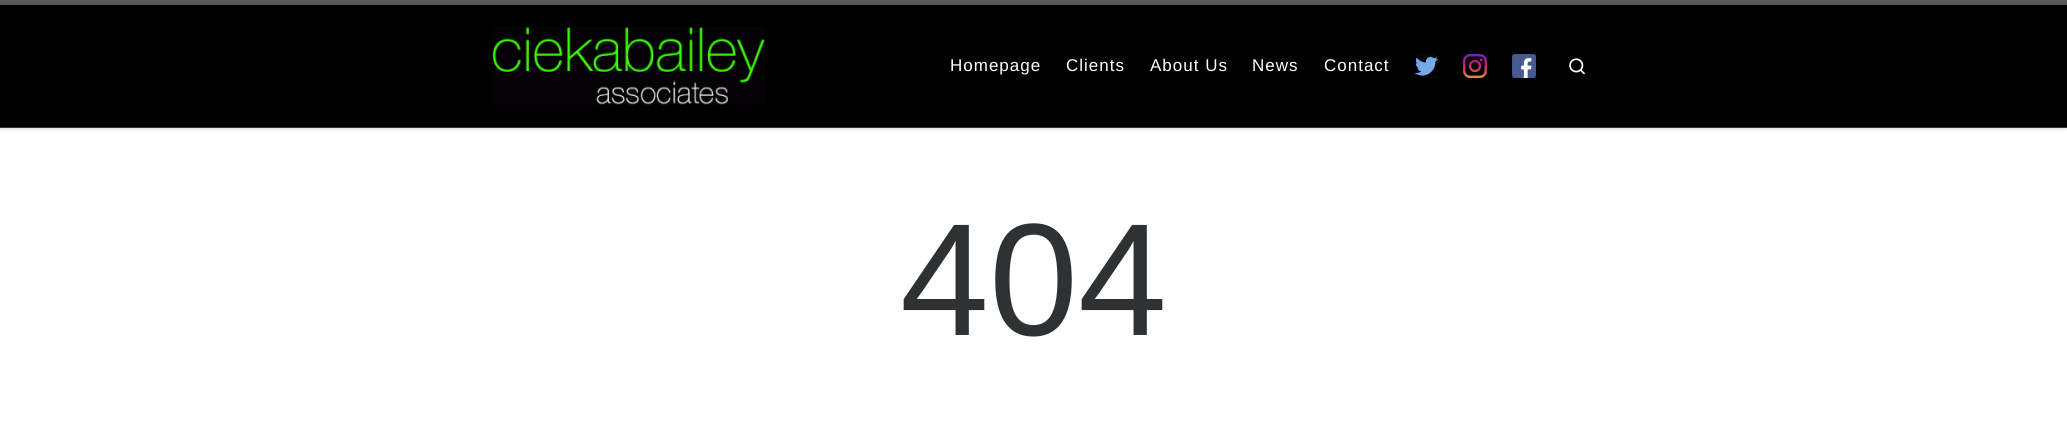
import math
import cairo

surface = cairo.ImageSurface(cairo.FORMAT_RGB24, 2067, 425)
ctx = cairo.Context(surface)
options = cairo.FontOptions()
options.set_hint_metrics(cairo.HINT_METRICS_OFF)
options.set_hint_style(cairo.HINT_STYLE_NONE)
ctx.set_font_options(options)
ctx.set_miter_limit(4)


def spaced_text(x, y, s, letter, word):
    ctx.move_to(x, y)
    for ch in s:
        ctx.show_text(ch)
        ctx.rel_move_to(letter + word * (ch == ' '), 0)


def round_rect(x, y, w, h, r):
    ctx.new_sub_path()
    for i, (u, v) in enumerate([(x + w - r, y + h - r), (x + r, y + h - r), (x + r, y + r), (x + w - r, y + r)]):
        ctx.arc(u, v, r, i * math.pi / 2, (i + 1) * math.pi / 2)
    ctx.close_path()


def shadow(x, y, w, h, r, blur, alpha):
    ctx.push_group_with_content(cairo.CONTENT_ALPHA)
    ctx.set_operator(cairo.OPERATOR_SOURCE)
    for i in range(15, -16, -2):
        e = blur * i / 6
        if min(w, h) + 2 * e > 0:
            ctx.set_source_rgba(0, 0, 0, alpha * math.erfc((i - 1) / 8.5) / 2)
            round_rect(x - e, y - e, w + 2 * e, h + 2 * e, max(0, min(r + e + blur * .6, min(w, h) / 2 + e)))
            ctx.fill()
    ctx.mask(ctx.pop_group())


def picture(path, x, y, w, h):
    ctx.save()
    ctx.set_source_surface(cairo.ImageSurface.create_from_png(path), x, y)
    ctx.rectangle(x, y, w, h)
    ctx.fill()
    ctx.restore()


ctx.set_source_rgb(1, 1, 1)
ctx.paint()
ctx.set_source_rgb(0.4, 0.4, 0.4)
shadow(0, 2, 2067, 128, 0, 1, 0.08)
ctx.set_source_rgb(0, 0, 0)
ctx.rectangle(0, 5, 2067, 122)
ctx.fill()
ctx.set_source_rgb(0.353, 0.353, 0.353)
ctx.rectangle(0, 0, 2067, 5)
ctx.fill()
ctx.set_source_rgb(0.227, 0.227, 0.227)
ctx.rectangle(0, 127, 2067, 1)
ctx.fill()
ctx.save()
ctx.set_fill_rule(cairo.FILL_RULE_EVEN_ODD)
ctx.new_path()
ctx.move_to(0, 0)
ctx.line_to(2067, 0)
ctx.line_to(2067, 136)
ctx.line_to(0, 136)
ctx.close_path()
ctx.move_to(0, 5)
ctx.line_to(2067, 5)
ctx.line_to(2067, 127)
ctx.line_to(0, 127)
ctx.close_path()
ctx.clip()
ctx.set_source_rgb(0, 0, 0)
shadow(0, 5, 2067, 122, 0, 2.5, 0.2)
ctx.restore()
picture("img1.png", 492, 26, 273, 79)
ctx.select_font_face("Liberation Sans")
ctx.set_font_size(17)
ctx.set_source_rgb(1, 1, 1)
spaced_text(950, 71, "Homepage", 1, 0)
spaced_text(1066, 71, "Clients", 1, 0)
spaced_text(1150, 71, "About Us", 1, 0)
spaced_text(1252, 71, "News", 1, 0)
spaced_text(1324, 71, "Contact", 1, 0)
picture("img2.png", 1414, 54, 24, 24)
picture("img3.png", 1463, 54, 24, 24)
picture("img4.png", 1512, 54, 24, 24)
picture("img5.png", 1569, 58, 16, 17)
ctx.set_font_size(160)
ctx.set_source_rgb(0.188, 0.192, 0.2)
ctx.move_to(900, 335)
ctx.show_text("404")
surface.write_to_png("page.png")
